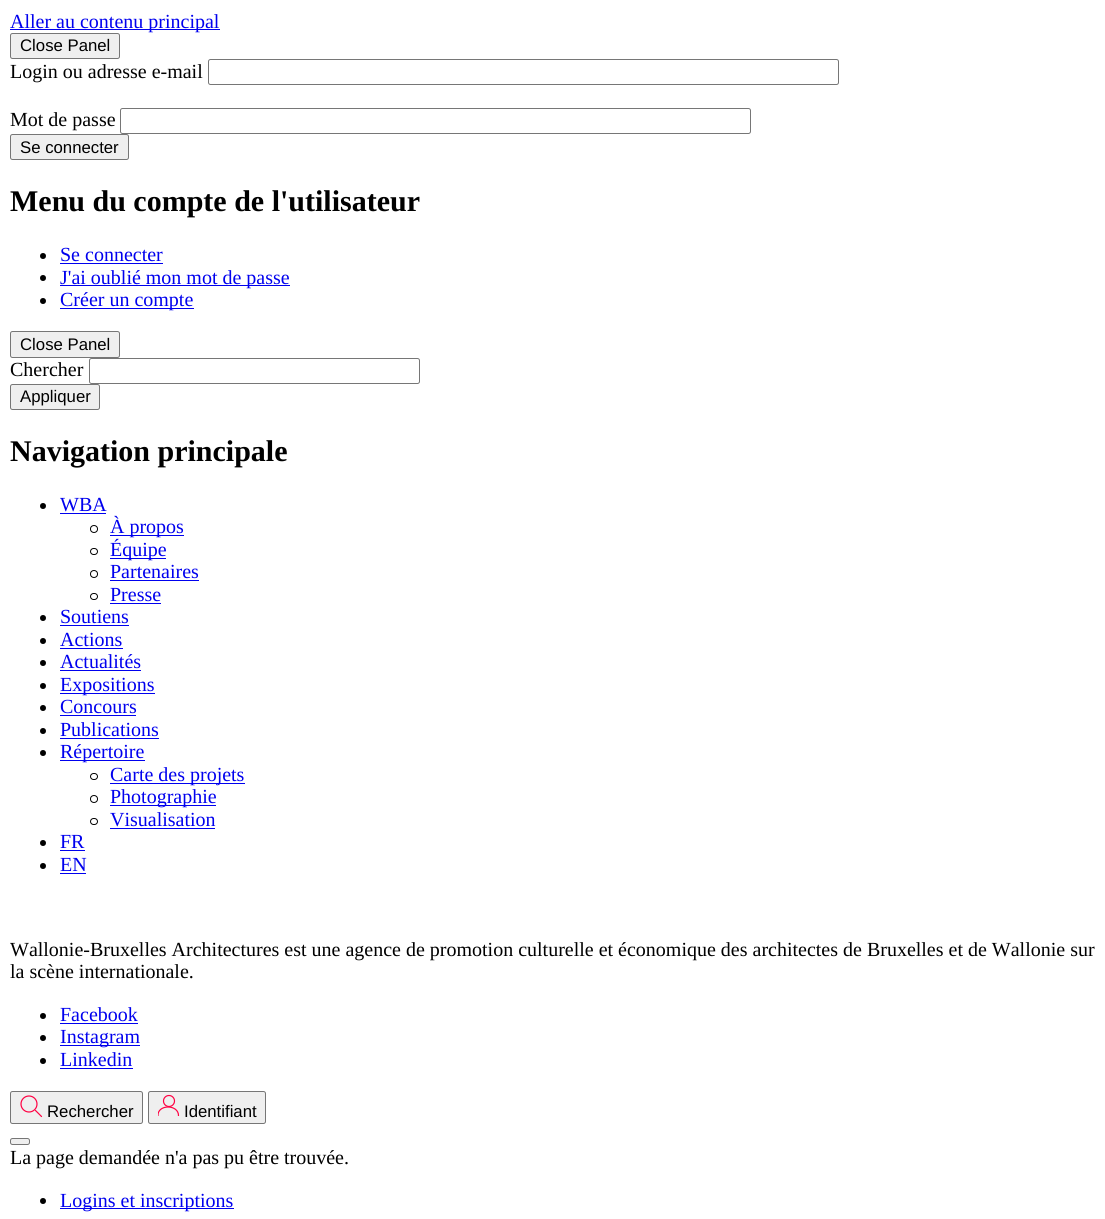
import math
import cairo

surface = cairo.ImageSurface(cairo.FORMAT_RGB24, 1105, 1219)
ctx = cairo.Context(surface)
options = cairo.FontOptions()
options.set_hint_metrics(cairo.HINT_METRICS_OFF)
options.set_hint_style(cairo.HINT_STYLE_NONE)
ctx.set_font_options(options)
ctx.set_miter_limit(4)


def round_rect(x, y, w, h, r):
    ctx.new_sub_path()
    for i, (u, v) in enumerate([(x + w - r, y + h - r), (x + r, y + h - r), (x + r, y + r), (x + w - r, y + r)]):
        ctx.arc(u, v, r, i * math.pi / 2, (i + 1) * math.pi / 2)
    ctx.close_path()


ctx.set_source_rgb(1, 1, 1)
ctx.paint()
ctx.set_source_rgb(0, 0, 0.933)
ctx.rectangle(10, 29, 210, 1)
ctx.fill()
ctx.select_font_face("Liberation Serif")
ctx.set_font_size(20)
ctx.move_to(10, 28)
ctx.show_text("Aller au contenu principal")
ctx.set_source_rgb(0.937, 0.937, 0.937)
round_rect(10.5, 33.5, 109, 25, 2)
ctx.fill_preserve()
ctx.set_source_rgb(0.463, 0.463, 0.463)
ctx.set_line_width(1)
ctx.stroke()
ctx.select_font_face("Liberation Sans")
ctx.set_font_size(16.75)
ctx.set_source_rgb(0, 0, 0)
ctx.move_to(20, 51)
ctx.show_text("Close Panel")
ctx.select_font_face("Liberation Serif")
ctx.set_font_size(20)
ctx.move_to(10, 78)
ctx.show_text("Login ou adresse e-mail")
round_rect(208.5, 59.5, 630, 25, 2)
ctx.set_source_rgb(0.463, 0.463, 0.463)
ctx.stroke()
ctx.set_source_rgb(0, 0, 0)
ctx.move_to(10, 126)
ctx.show_text("Mot de passe")
round_rect(120.5, 108.5, 630, 25, 2)
ctx.set_source_rgb(0.463, 0.463, 0.463)
ctx.stroke()
ctx.set_source_rgb(0.937, 0.937, 0.937)
round_rect(10.5, 134.5, 118, 25, 2)
ctx.fill_preserve()
ctx.set_source_rgb(0.463, 0.463, 0.463)
ctx.stroke()
ctx.select_font_face("Liberation Sans")
ctx.set_font_size(16.75)
ctx.set_source_rgb(0, 0, 0)
ctx.move_to(20, 153)
ctx.show_text("Se connecter")
ctx.select_font_face("Liberation Serif", cairo.FONT_SLANT_NORMAL, cairo.FONT_WEIGHT_BOLD)
ctx.set_font_size(30)
ctx.move_to(10, 211)
ctx.show_text("Menu du compte de l'utilisateur")
ctx.new_path()
ctx.arc(43, 256, 3, 0, 2 * math.pi)
ctx.fill()
ctx.select_font_face("Liberation Serif")
ctx.set_font_size(20)
ctx.set_source_rgb(0, 0, 0.933)
ctx.move_to(60, 261)
ctx.show_text("Se connecter")
ctx.rectangle(60, 263, 103, 1)
ctx.fill()
ctx.set_source_rgb(0, 0, 0)
ctx.arc(43, 278, 3, 0, 2 * math.pi)
ctx.fill()
ctx.set_source_rgb(0, 0, 0.933)
ctx.rectangle(60, 285, 230, 1)
ctx.fill()
ctx.move_to(60, 284)
ctx.show_text("J'ai oublié mon mot de passe")
ctx.set_source_rgb(0, 0, 0)
ctx.new_path()
ctx.arc(43, 301, 3, 0, 2 * math.pi)
ctx.fill()
ctx.set_source_rgb(0, 0, 0.933)
ctx.rectangle(60, 308, 134, 1)
ctx.fill()
ctx.move_to(60, 306)
ctx.show_text("Créer un compte")
ctx.set_source_rgb(0.937, 0.937, 0.937)
round_rect(10.5, 331.5, 109, 26, 2)
ctx.fill_preserve()
ctx.set_source_rgb(0.463, 0.463, 0.463)
ctx.stroke()
ctx.select_font_face("Liberation Sans")
ctx.set_font_size(16.75)
ctx.set_source_rgb(0, 0, 0)
ctx.move_to(20, 350)
ctx.show_text("Close Panel")
ctx.select_font_face("Liberation Serif")
ctx.set_font_size(20)
ctx.move_to(10, 376)
ctx.show_text("Chercher")
round_rect(89.5, 358.5, 330, 25, 2)
ctx.set_source_rgb(0.463, 0.463, 0.463)
ctx.stroke()
ctx.set_source_rgb(0.937, 0.937, 0.937)
round_rect(10.5, 384.5, 89, 25, 2)
ctx.fill_preserve()
ctx.set_source_rgb(0.463, 0.463, 0.463)
ctx.stroke()
ctx.select_font_face("Liberation Sans")
ctx.set_font_size(16.75)
ctx.set_source_rgb(0, 0, 0)
ctx.move_to(20, 402)
ctx.show_text("Appliquer")
ctx.select_font_face("Liberation Serif", cairo.FONT_SLANT_NORMAL, cairo.FONT_WEIGHT_BOLD)
ctx.set_font_size(30)
ctx.move_to(10, 461)
ctx.show_text("Navigation principale")
ctx.new_path()
ctx.arc(43, 506, 3, 0, 2 * math.pi)
ctx.fill()
ctx.select_font_face("Liberation Serif")
ctx.set_font_size(20)
ctx.set_source_rgb(0, 0, 0.933)
ctx.move_to(60, 511)
ctx.show_text("WBA")
ctx.rectangle(60, 513, 46, 1)
ctx.fill()
ctx.arc(94, 529, 3.5, 0, 2 * math.pi)
ctx.set_source_rgb(0, 0, 0)
ctx.stroke()
ctx.set_source_rgb(0, 0, 0.933)
ctx.rectangle(110, 535, 74, 1)
ctx.fill()
ctx.move_to(110, 533)
ctx.show_text("À propos")
round_rect(90.5, 548.5, 7, 6, 3)
ctx.set_source_rgb(0, 0, 0)
ctx.stroke()
ctx.set_source_rgb(0, 0, 0.933)
ctx.rectangle(110, 558, 56, 1)
ctx.fill()
ctx.move_to(110, 556)
ctx.show_text("Équipe")
ctx.new_path()
ctx.arc(94, 574, 3.5, 0, 2 * math.pi)
ctx.set_source_rgb(0, 0, 0)
ctx.stroke()
ctx.set_source_rgb(0, 0, 0.933)
ctx.move_to(110, 578)
ctx.show_text("Partenaires")
ctx.rectangle(110, 580, 89, 1)
ctx.fill()
round_rect(90.5, 593.5, 7, 6, 3)
ctx.set_source_rgb(0, 0, 0)
ctx.stroke()
ctx.set_source_rgb(0, 0, 0.933)
ctx.move_to(110, 601)
ctx.show_text("Presse")
ctx.rectangle(110, 603, 51, 1)
ctx.fill()
ctx.set_source_rgb(0, 0, 0)
ctx.arc(43, 618, 3, 0, 2 * math.pi)
ctx.fill()
ctx.set_source_rgb(0, 0, 0.933)
ctx.move_to(60, 623)
ctx.show_text("Soutiens")
ctx.rectangle(60, 625, 69, 1)
ctx.fill()
ctx.set_source_rgb(0, 0, 0)
ctx.arc(43, 641, 3, 0, 2 * math.pi)
ctx.fill()
ctx.set_source_rgb(0, 0, 0.933)
ctx.move_to(60, 646)
ctx.show_text("Actions")
ctx.rectangle(60, 648, 63, 1)
ctx.fill()
ctx.set_source_rgb(0, 0, 0)
ctx.arc(43, 663, 3, 0, 2 * math.pi)
ctx.fill()
ctx.set_source_rgb(0, 0, 0.933)
ctx.move_to(60, 668)
ctx.show_text("Actualités")
ctx.rectangle(60, 670, 81, 1)
ctx.fill()
ctx.set_source_rgb(0, 0, 0)
ctx.arc(43, 686, 3, 0, 2 * math.pi)
ctx.fill()
ctx.set_source_rgb(0, 0, 0.933)
ctx.rectangle(60, 693, 95, 1)
ctx.fill()
ctx.move_to(60, 691)
ctx.show_text("Expositions")
ctx.set_source_rgb(0, 0, 0)
ctx.new_path()
ctx.arc(43, 708, 3, 0, 2 * math.pi)
ctx.fill()
ctx.set_source_rgb(0, 0, 0.933)
ctx.move_to(60, 713)
ctx.show_text("Concours")
ctx.rectangle(60, 715, 76, 1)
ctx.fill()
ctx.set_source_rgb(0, 0, 0)
ctx.arc(43, 731, 3, 0, 2 * math.pi)
ctx.fill()
ctx.set_source_rgb(0, 0, 0.933)
ctx.move_to(60, 736)
ctx.show_text("Publications")
ctx.rectangle(60, 738, 99, 1)
ctx.fill()
ctx.set_source_rgb(0, 0, 0)
ctx.arc(43, 753, 3, 0, 2 * math.pi)
ctx.fill()
ctx.set_source_rgb(0, 0, 0.933)
ctx.rectangle(60, 760, 85, 1)
ctx.fill()
ctx.move_to(60, 758)
ctx.show_text("Répertoire")
round_rect(90.5, 773.5, 7, 6, 3)
ctx.set_source_rgb(0, 0, 0)
ctx.stroke()
ctx.set_source_rgb(0, 0, 0.933)
ctx.rectangle(110, 783, 135, 1)
ctx.fill()
ctx.move_to(110, 781)
ctx.show_text("Carte des projets")
ctx.new_path()
ctx.arc(94, 799, 3.5, 0, 2 * math.pi)
ctx.set_source_rgb(0, 0, 0)
ctx.stroke()
ctx.set_source_rgb(0, 0, 0.933)
ctx.rectangle(110, 805, 106, 1)
ctx.fill()
ctx.move_to(110, 803)
ctx.show_text("Photographie")
round_rect(90.5, 818.5, 7, 6, 3)
ctx.set_source_rgb(0, 0, 0)
ctx.stroke()
ctx.set_source_rgb(0, 0, 0.933)
ctx.move_to(110, 826)
ctx.show_text("Visualisation")
ctx.rectangle(110, 828, 105, 1)
ctx.fill()
ctx.set_source_rgb(0, 0, 0)
ctx.arc(43, 843, 3, 0, 2 * math.pi)
ctx.fill()
ctx.set_source_rgb(0, 0, 0.933)
ctx.move_to(60, 848)
ctx.show_text("FR")
ctx.rectangle(60, 850, 25, 1)
ctx.fill()
ctx.set_source_rgb(0, 0, 0)
ctx.arc(43, 866, 3, 0, 2 * math.pi)
ctx.fill()
ctx.set_source_rgb(0, 0, 0.933)
ctx.move_to(60, 871)
ctx.show_text("EN")
ctx.rectangle(60, 873, 26, 1)
ctx.fill()
ctx.set_source_rgb(0, 0, 0)
ctx.move_to(10, 956)
ctx.show_text("Wallonie-Bruxelles Architectures est une agence de promotion culturelle et économique des architectes de Bruxelles et de Wallonie sur")
ctx.move_to(10, 978)
ctx.show_text("la scène internationale.")
ctx.new_path()
ctx.arc(43, 1016, 3, 0, 2 * math.pi)
ctx.fill()
ctx.set_source_rgb(0, 0, 0.933)
ctx.move_to(60, 1021)
ctx.show_text("Facebook")
ctx.rectangle(60, 1023, 78, 1)
ctx.fill()
ctx.set_source_rgb(0, 0, 0)
ctx.arc(43, 1038, 3, 0, 2 * math.pi)
ctx.fill()
ctx.set_source_rgb(0, 0, 0.933)
ctx.rectangle(60, 1045, 80, 1)
ctx.fill()
ctx.move_to(60, 1043)
ctx.show_text("Instagram")
ctx.set_source_rgb(0, 0, 0)
ctx.new_path()
ctx.arc(43, 1061, 3, 0, 2 * math.pi)
ctx.fill()
ctx.set_source_rgb(0, 0, 0.933)
ctx.move_to(60, 1066)
ctx.show_text("Linkedin")
ctx.rectangle(60, 1068, 73, 1)
ctx.fill()
ctx.set_source_rgb(0.937, 0.937, 0.937)
round_rect(10.5, 1091.5, 132, 32, 2)
ctx.fill_preserve()
ctx.set_source_rgb(0.463, 0.463, 0.463)
ctx.stroke()
ctx.arc(29, 1104, 8, 0, 2 * math.pi)
ctx.set_source_rgb(1, 0, 0.259)
ctx.set_line_width(1.2)
ctx.stroke()
ctx.select_font_face("Liberation Sans")
ctx.set_font_size(16.75)
ctx.set_source_rgb(0, 0, 0)
ctx.move_to(47, 1117)
ctx.show_text("Rechercher")
ctx.new_path()
ctx.move_to(41.5, 1116.5)
ctx.line_to(35.5, 1110.5)
ctx.set_source_rgb(1, 0, 0.259)
ctx.set_line_cap(cairo.LINE_CAP_ROUND)
ctx.set_line_join(cairo.LINE_JOIN_ROUND)
ctx.stroke()
ctx.set_source_rgb(0.937, 0.937, 0.937)
round_rect(148.5, 1091.5, 117, 32, 2)
ctx.fill_preserve()
ctx.set_source_rgb(0.463, 0.463, 0.463)
ctx.set_line_width(1)
ctx.set_line_cap(cairo.LINE_CAP_BUTT)
ctx.set_line_join(cairo.LINE_JOIN_MITER)
ctx.stroke()
ctx.save()
ctx.rectangle(158, 1095, 22, 21)
ctx.clip()
ctx.new_path()
ctx.move_to(158, 1116)
ctx.curve_to(157, 1104, 179, 1104, 178.5, 1116)
ctx.set_source_rgb(1, 0, 0.259)
ctx.set_line_width(1.2)
ctx.stroke()
ctx.restore()
ctx.arc(169, 1101, 5.5, 0, 2 * math.pi)
ctx.set_source_rgb(1, 0, 0.259)
ctx.set_line_width(1.2)
ctx.stroke()
ctx.set_source_rgb(0, 0, 0)
ctx.move_to(184, 1117)
ctx.show_text("Identifiant")
ctx.set_source_rgb(0.937, 0.937, 0.937)
round_rect(10.5, 1138.5, 19, 6, 2)
ctx.fill_preserve()
ctx.set_source_rgb(0.463, 0.463, 0.463)
ctx.set_line_width(1)
ctx.stroke()
ctx.select_font_face("Liberation Serif")
ctx.set_font_size(20)
ctx.set_source_rgb(0, 0, 0)
ctx.move_to(10, 1164)
ctx.show_text("La page demandée n'a pas pu être trouvée.")
ctx.new_path()
ctx.arc(43, 1201, 3, 0, 2 * math.pi)
ctx.fill()
ctx.set_source_rgb(0, 0, 0.933)
ctx.rectangle(60, 1208, 174, 1)
ctx.fill()
ctx.move_to(60, 1207)
ctx.show_text("Logins et inscriptions")
surface.write_to_png("page.png")
